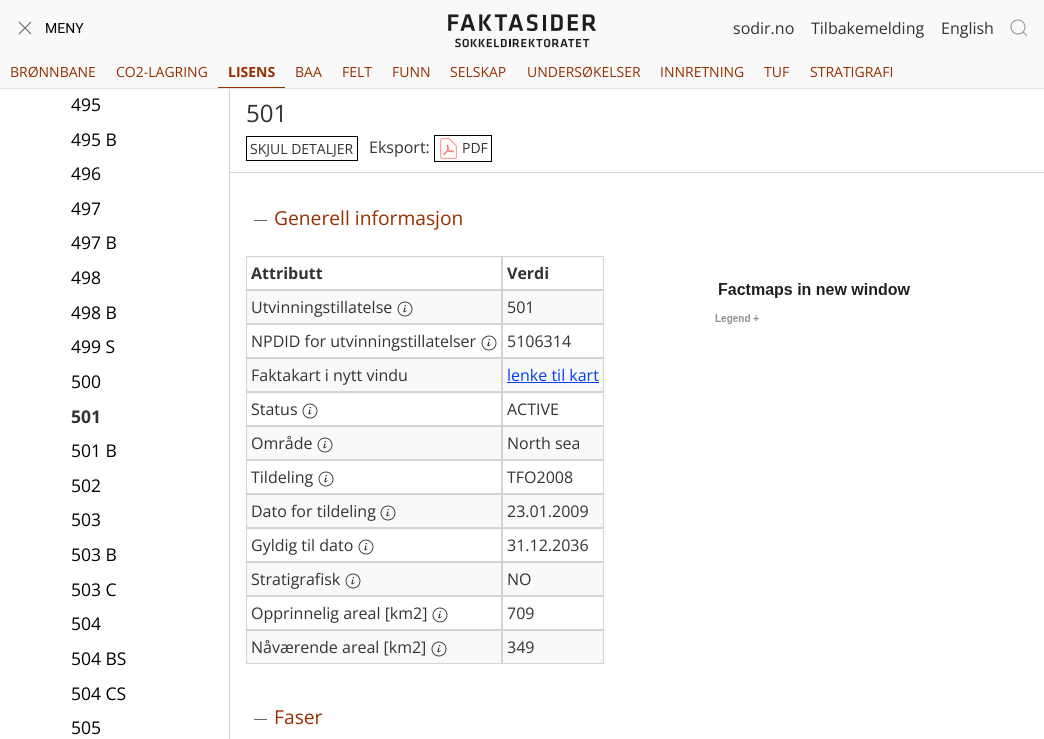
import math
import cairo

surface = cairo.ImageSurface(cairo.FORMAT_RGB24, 1044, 739)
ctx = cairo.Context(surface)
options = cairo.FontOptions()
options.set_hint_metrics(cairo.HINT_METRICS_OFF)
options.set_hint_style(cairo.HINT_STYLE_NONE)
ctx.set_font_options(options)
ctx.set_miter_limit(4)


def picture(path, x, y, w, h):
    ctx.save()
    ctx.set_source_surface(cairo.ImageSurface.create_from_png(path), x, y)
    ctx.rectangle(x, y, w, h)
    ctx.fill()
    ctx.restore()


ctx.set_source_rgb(1, 1, 1)
ctx.paint()
ctx.set_source_rgb(0.898, 0.898, 0.898)
ctx.rectangle(0, 88, 1044, 1)
ctx.fill()
ctx.set_source_rgb(0.973, 0.973, 0.973)
ctx.rectangle(0, 0, 1044, 88)
ctx.fill()
ctx.new_path()
ctx.move_to(31, 34)
ctx.line_to(19, 22)
ctx.move_to(31, 22)
ctx.line_to(19, 34)
ctx.set_source_rgb(0.4, 0.4, 0.4)
ctx.set_line_width(1.1)
ctx.stroke()
ctx.select_font_face("Roboto")
ctx.set_font_size(14)
ctx.set_source_rgb(0, 0, 0)
ctx.move_to(45, 33)
ctx.show_text("MENY")
picture("img1.png", 448, 14, 149, 34)
ctx.select_font_face("Open Sans")
ctx.set_font_size(16)
ctx.set_source_rgb(0.2, 0.2, 0.2)
ctx.move_to(733, 34)
ctx.show_text("sodir.no")
ctx.move_to(811, 34)
ctx.show_text("Tilbakemelding")
ctx.move_to(941, 34)
ctx.show_text("English")
ctx.new_path()
ctx.arc(1018, 27, 7, 0, 2 * math.pi)
ctx.set_source_rgb(0.6, 0.6, 0.6)
ctx.stroke()
ctx.new_path()
ctx.move_to(1023, 32)
ctx.line_to(1027, 36)
ctx.close_path()
ctx.stroke()
ctx.set_font_size(14)
ctx.set_source_rgb(0.588, 0.184, 0)
ctx.move_to(10, 77)
ctx.show_text("BRØNNBANE")
ctx.move_to(116, 77)
ctx.show_text("CO2-LAGRING")
ctx.rectangle(218, 87, 67, 1)
ctx.fill()
ctx.select_font_face("Open Sans", cairo.FONT_SLANT_NORMAL, cairo.FONT_WEIGHT_BOLD)
ctx.move_to(228, 77)
ctx.show_text("LISENS")
ctx.select_font_face("Open Sans")
ctx.move_to(295, 77)
ctx.show_text("BAA")
ctx.move_to(342, 77)
ctx.show_text("FELT")
ctx.move_to(392, 77)
ctx.show_text("FUNN")
ctx.move_to(450, 77)
ctx.show_text("SELSKAP")
ctx.move_to(527, 77)
ctx.show_text("UNDERSØKELSER")
ctx.move_to(660, 77)
ctx.show_text("INNRETNING")
ctx.move_to(764, 77)
ctx.show_text("TUF")
ctx.move_to(810, 77)
ctx.show_text("STRATIGRAFI")
ctx.set_source_rgb(0.827, 0.827, 0.827)
ctx.rectangle(229, 89, 1, 650)
ctx.fill()
ctx.set_font_size(17.5)
ctx.set_source_rgb(0, 0, 0)
ctx.move_to(71, 111)
ctx.show_text("495")
ctx.move_to(71, 146)
ctx.show_text("495 B")
ctx.move_to(71, 180)
ctx.show_text("496")
ctx.move_to(71, 215)
ctx.show_text("497")
ctx.move_to(71, 249)
ctx.show_text("497 B")
ctx.move_to(71, 284)
ctx.show_text("498")
ctx.move_to(71, 319)
ctx.show_text("498 B")
ctx.move_to(71, 353)
ctx.show_text("499 S")
ctx.move_to(71, 388)
ctx.show_text("500")
ctx.select_font_face("Open Sans", cairo.FONT_SLANT_NORMAL, cairo.FONT_WEIGHT_BOLD)
ctx.set_source_rgb(0.2, 0.2, 0.2)
ctx.move_to(71, 423)
ctx.show_text("501")
ctx.select_font_face("Open Sans")
ctx.set_source_rgb(0, 0, 0)
ctx.move_to(71, 457)
ctx.show_text("501 B")
ctx.move_to(71, 492)
ctx.show_text("502")
ctx.move_to(71, 526)
ctx.show_text("503")
ctx.move_to(71, 561)
ctx.show_text("503 B")
ctx.move_to(71, 596)
ctx.show_text("503 C")
ctx.move_to(71, 630)
ctx.show_text("504")
ctx.move_to(71, 665)
ctx.show_text("504 BS")
ctx.move_to(71, 700)
ctx.show_text("504 CS")
ctx.move_to(71, 734)
ctx.show_text("505")
ctx.set_source_rgb(0.827, 0.827, 0.827)
ctx.rectangle(230, 172, 814, 1)
ctx.fill()
ctx.set_font_size(24)
ctx.set_source_rgb(0.2, 0.2, 0.2)
ctx.move_to(246, 122)
ctx.show_text("501")
ctx.rectangle(246.5, 136.5, 111, 24)
ctx.set_source_rgb(0, 0, 0)
ctx.set_line_width(1)
ctx.stroke()
ctx.set_font_size(14)
ctx.set_source_rgb(0.2, 0.2, 0.2)
ctx.move_to(250, 154)
ctx.show_text("SKJUL DETALJER")
ctx.set_font_size(16)
ctx.move_to(369, 153)
ctx.show_text("Eksport:")
ctx.rectangle(434.5, 135.5, 57, 26)
ctx.set_source_rgb(0, 0, 0)
ctx.stroke()
picture("img2.png", 440, 138, 17, 21)
ctx.set_font_size(14)
ctx.set_source_rgb(0.2, 0.2, 0.2)
ctx.move_to(462, 153)
ctx.show_text("PDF")
ctx.set_source_rgb(0.4, 0.4, 0.4)
ctx.rectangle(254, 220, 13, 1)
ctx.fill()
ctx.set_font_size(19.25)
ctx.set_source_rgb(0.588, 0.184, 0)
ctx.move_to(274, 225)
ctx.show_text("Generell informasjon")
ctx.rectangle(246.5, 256.5, 255, 33)
ctx.set_source_rgb(0.827, 0.827, 0.827)
ctx.stroke()
ctx.select_font_face("Open Sans", cairo.FONT_SLANT_NORMAL, cairo.FONT_WEIGHT_BOLD)
ctx.set_font_size(16)
ctx.set_source_rgb(0.2, 0.2, 0.2)
ctx.move_to(251, 279)
ctx.show_text("Attributt")
ctx.rectangle(502.5, 256.5, 101, 33)
ctx.set_source_rgb(0.827, 0.827, 0.827)
ctx.stroke()
ctx.set_source_rgb(0.2, 0.2, 0.2)
ctx.move_to(507, 279)
ctx.show_text("Verdi")
ctx.set_source_rgb(0.973, 0.973, 0.973)
ctx.rectangle(247, 291, 356, 32)
ctx.fill()
ctx.rectangle(246.5, 290.5, 255, 33)
ctx.set_source_rgb(0.827, 0.827, 0.827)
ctx.stroke()
ctx.select_font_face("Open Sans")
ctx.set_source_rgb(0.2, 0.2, 0.2)
ctx.move_to(251, 313)
ctx.show_text("Utvinningstillatelse")
picture("img3.png", 397, 301, 16, 16)
ctx.rectangle(502.5, 290.5, 101, 33)
ctx.set_source_rgb(0.827, 0.827, 0.827)
ctx.stroke()
ctx.set_source_rgb(0.2, 0.2, 0.2)
ctx.move_to(507, 313)
ctx.show_text("501")
ctx.rectangle(246.5, 324.5, 255, 33)
ctx.set_source_rgb(0.827, 0.827, 0.827)
ctx.stroke()
ctx.set_source_rgb(0.2, 0.2, 0.2)
ctx.move_to(251, 347)
ctx.show_text("NPDID for utvinningstillatelser")
picture("img4.png", 481, 335, 16, 16)
ctx.rectangle(502.5, 324.5, 101, 33)
ctx.set_source_rgb(0.827, 0.827, 0.827)
ctx.stroke()
ctx.set_source_rgb(0.2, 0.2, 0.2)
ctx.move_to(507, 347)
ctx.show_text("5106314")
ctx.set_source_rgb(0.973, 0.973, 0.973)
ctx.rectangle(247, 359, 356, 32)
ctx.fill()
ctx.rectangle(246.5, 358.5, 255, 33)
ctx.set_source_rgb(0.827, 0.827, 0.827)
ctx.stroke()
ctx.set_source_rgb(0.2, 0.2, 0.2)
ctx.move_to(251, 381)
ctx.show_text("Faktakart i nytt vindu")
ctx.rectangle(502.5, 358.5, 101, 33)
ctx.set_source_rgb(0.827, 0.827, 0.827)
ctx.stroke()
ctx.set_source_rgb(0, 0.235, 1)
ctx.move_to(507, 381)
ctx.show_text("lenke til kart")
ctx.rectangle(507, 382, 92, 1)
ctx.fill()
ctx.rectangle(246.5, 392.5, 255, 33)
ctx.set_source_rgb(0.827, 0.827, 0.827)
ctx.stroke()
ctx.set_source_rgb(0.2, 0.2, 0.2)
ctx.move_to(251, 415)
ctx.show_text("Status")
picture("img4.png", 302, 403, 16, 16)
ctx.rectangle(502.5, 392.5, 101, 33)
ctx.set_source_rgb(0.827, 0.827, 0.827)
ctx.stroke()
ctx.set_source_rgb(0.2, 0.2, 0.2)
ctx.move_to(507, 415)
ctx.show_text("ACTIVE")
ctx.set_source_rgb(0.973, 0.973, 0.973)
ctx.rectangle(247, 427, 356, 32)
ctx.fill()
ctx.rectangle(246.5, 426.5, 255, 33)
ctx.set_source_rgb(0.827, 0.827, 0.827)
ctx.stroke()
ctx.set_source_rgb(0.2, 0.2, 0.2)
ctx.move_to(251, 449)
ctx.show_text("Område")
picture("img3.png", 317, 437, 16, 16)
ctx.rectangle(502.5, 426.5, 101, 33)
ctx.set_source_rgb(0.827, 0.827, 0.827)
ctx.stroke()
ctx.set_source_rgb(0.2, 0.2, 0.2)
ctx.move_to(507, 449)
ctx.show_text("North sea")
ctx.rectangle(246.5, 460.5, 255, 33)
ctx.set_source_rgb(0.827, 0.827, 0.827)
ctx.stroke()
ctx.set_source_rgb(0.2, 0.2, 0.2)
ctx.move_to(251, 483)
ctx.show_text("Tildeling")
picture("img4.png", 318, 471, 16, 16)
ctx.rectangle(502.5, 460.5, 101, 33)
ctx.set_source_rgb(0.827, 0.827, 0.827)
ctx.stroke()
ctx.set_source_rgb(0.2, 0.2, 0.2)
ctx.move_to(507, 483)
ctx.show_text("TFO2008")
ctx.set_source_rgb(0.973, 0.973, 0.973)
ctx.rectangle(247, 495, 356, 32)
ctx.fill()
ctx.rectangle(246.5, 494.5, 255, 33)
ctx.set_source_rgb(0.827, 0.827, 0.827)
ctx.stroke()
ctx.set_source_rgb(0.2, 0.2, 0.2)
ctx.move_to(251, 517)
ctx.show_text("Dato for tildeling")
picture("img3.png", 380, 505, 16, 16)
ctx.rectangle(502.5, 494.5, 101, 33)
ctx.set_source_rgb(0.827, 0.827, 0.827)
ctx.stroke()
ctx.set_source_rgb(0.2, 0.2, 0.2)
ctx.move_to(507, 517)
ctx.show_text("23.01.2009")
ctx.rectangle(246.5, 528.5, 255, 33)
ctx.set_source_rgb(0.827, 0.827, 0.827)
ctx.stroke()
ctx.set_source_rgb(0.2, 0.2, 0.2)
ctx.move_to(251, 551)
ctx.show_text("Gyldig til dato")
picture("img4.png", 358, 539, 16, 16)
ctx.rectangle(502.5, 528.5, 101, 33)
ctx.set_source_rgb(0.827, 0.827, 0.827)
ctx.stroke()
ctx.set_source_rgb(0.2, 0.2, 0.2)
ctx.move_to(507, 551)
ctx.show_text("31.12.2036")
ctx.set_source_rgb(0.973, 0.973, 0.973)
ctx.rectangle(247, 563, 356, 32)
ctx.fill()
ctx.rectangle(246.5, 562.5, 255, 33)
ctx.set_source_rgb(0.827, 0.827, 0.827)
ctx.stroke()
ctx.set_source_rgb(0.2, 0.2, 0.2)
ctx.move_to(251, 585)
ctx.show_text("Stratigrafisk")
picture("img3.png", 345, 573, 16, 16)
ctx.rectangle(502.5, 562.5, 101, 33)
ctx.set_source_rgb(0.827, 0.827, 0.827)
ctx.stroke()
ctx.set_source_rgb(0.2, 0.2, 0.2)
ctx.move_to(507, 585)
ctx.show_text("NO")
ctx.rectangle(246.5, 596.5, 255, 33)
ctx.set_source_rgb(0.827, 0.827, 0.827)
ctx.stroke()
ctx.set_source_rgb(0.2, 0.2, 0.2)
ctx.move_to(251, 619)
ctx.show_text("Opprinnelig areal [km2]")
picture("img4.png", 432, 607, 16, 16)
ctx.rectangle(502.5, 596.5, 101, 33)
ctx.set_source_rgb(0.827, 0.827, 0.827)
ctx.stroke()
ctx.set_source_rgb(0.2, 0.2, 0.2)
ctx.move_to(507, 619)
ctx.show_text("709")
ctx.set_source_rgb(0.973, 0.973, 0.973)
ctx.rectangle(247, 631, 356, 32)
ctx.fill()
ctx.rectangle(246.5, 630.5, 255, 33)
ctx.set_source_rgb(0.827, 0.827, 0.827)
ctx.stroke()
ctx.set_source_rgb(0.2, 0.2, 0.2)
ctx.move_to(251, 653)
ctx.show_text("Nåværende areal [km2]")
picture("img3.png", 431, 641, 16, 16)
ctx.rectangle(502.5, 630.5, 101, 33)
ctx.set_source_rgb(0.827, 0.827, 0.827)
ctx.stroke()
ctx.set_source_rgb(0.2, 0.2, 0.2)
ctx.move_to(507, 653)
ctx.show_text("349")
picture("img5.png", 715, 283, 195, 41)
ctx.set_source_rgb(0.4, 0.4, 0.4)
ctx.rectangle(254, 719, 13, 1)
ctx.fill()
ctx.set_font_size(19.25)
ctx.set_source_rgb(0.588, 0.184, 0)
ctx.move_to(274, 724)
ctx.show_text("Faser")
surface.write_to_png("page.png")
